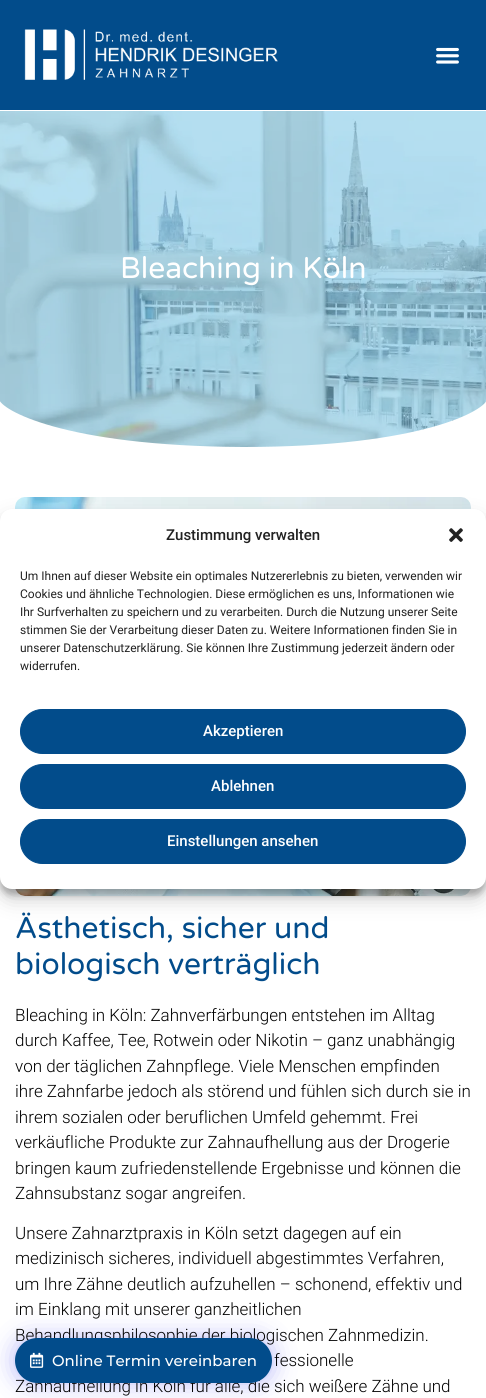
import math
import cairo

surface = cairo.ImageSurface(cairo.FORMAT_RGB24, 486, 1398)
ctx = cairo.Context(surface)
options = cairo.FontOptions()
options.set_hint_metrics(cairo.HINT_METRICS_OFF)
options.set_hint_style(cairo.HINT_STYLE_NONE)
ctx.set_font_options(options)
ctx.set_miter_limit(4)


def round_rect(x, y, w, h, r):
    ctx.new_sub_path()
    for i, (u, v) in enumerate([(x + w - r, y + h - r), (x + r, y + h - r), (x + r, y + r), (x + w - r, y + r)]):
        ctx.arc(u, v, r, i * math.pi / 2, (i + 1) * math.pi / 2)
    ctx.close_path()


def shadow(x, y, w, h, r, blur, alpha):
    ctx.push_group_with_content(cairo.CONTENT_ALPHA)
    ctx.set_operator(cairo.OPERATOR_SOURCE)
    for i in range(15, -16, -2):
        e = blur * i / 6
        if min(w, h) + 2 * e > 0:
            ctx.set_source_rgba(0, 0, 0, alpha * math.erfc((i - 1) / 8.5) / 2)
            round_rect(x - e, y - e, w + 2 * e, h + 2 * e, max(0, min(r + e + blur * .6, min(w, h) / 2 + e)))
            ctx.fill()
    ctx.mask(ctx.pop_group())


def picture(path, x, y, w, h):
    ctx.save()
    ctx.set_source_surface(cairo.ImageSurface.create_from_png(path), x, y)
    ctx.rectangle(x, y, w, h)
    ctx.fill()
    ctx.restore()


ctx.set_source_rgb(1, 1, 1)
ctx.paint()
ctx.set_source_rgb(0.008, 0.298, 0.545)
ctx.rectangle(0, 0, 486, 110)
ctx.fill()
picture("img1.png", 24, 29, 254, 51)
picture("img2.png", 436, 47, 23, 17)
picture("img3.png", 0, 111, 486, 336)
ctx.select_font_face("Varela Round")
ctx.set_font_size(30)
ctx.set_source_rgb(1, 1, 1)
ctx.move_to(120, 278)
ctx.show_text("Bleaching in Köln")
ctx.set_source_rgb(0.208, 0.22, 0.941)
shadow(15, 1338, 257, 45, 22.5, 12.5, 0.35)
ctx.select_font_face("Roboto Light")
ctx.set_font_size(17)
ctx.set_source_rgb(0, 0, 0)
ctx.move_to(15, 1341)
ctx.show_text("Behandlungsphilosophie der biologischen Zahnmedizin.")
ctx.move_to(15, 1392)
ctx.show_text("Zahnaufhellung in Köln für alle, die sich weißere Zähne und")
ctx.set_source_rgb(0.008, 0.298, 0.545)
round_rect(15, 1338, 257, 45, 22.5)
ctx.fill()
picture("img4.png", 30, 1352, 14, 16)
ctx.select_font_face("Montserrat Medium")
ctx.set_font_size(15)
ctx.set_source_rgb(1, 1, 1)
ctx.move_to(52, 1366)
ctx.show_text("Online Termin vereinbaren")
ctx.save()
ctx.rectangle(0, 399, 486, 48)
ctx.clip()
ctx.new_path()
ctx.move_to(243, 447)
ctx.curve_to(61, 446, 0, 409, -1, 399)
ctx.line_to(-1, 448)
ctx.line_to(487, 448)
ctx.line_to(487, 399)
ctx.curve_to(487, 409, 425, 447, 243, 447)
ctx.close_path()
ctx.fill()
ctx.restore()
picture("img5.png", 15, 497, 456, 399)
ctx.select_font_face("Varela Round")
ctx.set_font_size(30)
ctx.set_source_rgb(0.008, 0.298, 0.545)
ctx.move_to(15, 938)
ctx.show_text("Ästhetisch, sicher und")
ctx.move_to(15, 974)
ctx.show_text("biologisch verträglich")
ctx.select_font_face("Roboto Light")
ctx.set_font_size(17)
ctx.set_source_rgb(0, 0, 0)
ctx.move_to(15, 1021)
ctx.show_text("Bleaching in Köln: Zahnverfärbungen entstehen im Alltag")
ctx.move_to(15, 1046)
ctx.show_text("durch Kaffee, Tee, Rotwein oder Nikotin – ganz unabhängig")
ctx.move_to(15, 1072)
ctx.show_text("von der täglichen Zahnpflege. Viele Menschen empfinden")
ctx.move_to(15, 1097)
ctx.show_text("ihre Zahnfarbe jedoch als störend und fühlen sich durch sie in")
ctx.move_to(15, 1123)
ctx.show_text("ihrem sozialen oder beruflichen Umfeld gehemmt. Frei")
ctx.move_to(15, 1148)
ctx.show_text("verkäufliche Produkte zur Zahnaufhellung aus der Drogerie")
ctx.move_to(15, 1174)
ctx.show_text("bringen kaum zufriedenstellende Ergebnisse und können die")
ctx.move_to(15, 1199)
ctx.show_text("Zahnsubstanz sogar angreifen.")
ctx.move_to(15, 1239)
ctx.show_text("Unsere Zahnarztpraxis in Köln setzt dagegen auf ein")
ctx.move_to(15, 1264)
ctx.show_text("medizinisch sicheres, individuell abgestimmtes Verfahren,")
ctx.move_to(15, 1290)
ctx.show_text("um Ihre Zähne deutlich aufzuhellen – schonend, effektiv und")
ctx.move_to(15, 1315)
ctx.show_text("im Einklang mit unserer ganzheitlichen")
ctx.move_to(274, 1366)
ctx.show_text("fessionelle")
ctx.set_source_rgb(0, 0, 0)
shadow(0, 515, 486, 380, 12, 3, 0.23)
shadow(0, 519, 486, 380, 12, 10, 0.19)
ctx.set_source_rgb(1, 1, 1)
round_rect(0, 509, 486, 380, 12)
ctx.fill()
ctx.select_font_face("Roboto Medium")
ctx.set_font_size(15)
ctx.set_source_rgb(0.133, 0.133, 0.133)
ctx.move_to(166, 540)
ctx.show_text("Zustimmung verwalten")
picture("img6.png", 449, 528, 14, 14)
ctx.select_font_face("Roboto")
ctx.set_font_size(12)
ctx.move_to(20, 580)
ctx.show_text("Um Ihnen auf dieser Website ein optimales Nutzererlebnis zu bieten, verwenden wir")
ctx.move_to(20, 598)
ctx.show_text("Cookies und ähnliche Technologien. Diese ermöglichen es uns, Informationen wie")
ctx.move_to(20, 616)
ctx.show_text("Ihr Surfverhalten zu speichern und zu verarbeiten. Durch die Nutzung unserer Seite")
ctx.move_to(20, 634)
ctx.show_text("stimmen Sie der Verarbeitung dieser Daten zu. Weitere Informationen finden Sie in")
ctx.move_to(20, 652)
ctx.show_text("unserer Datenschutzerklärung. Sie können Ihre Zustimmung jederzeit ändern oder")
ctx.move_to(20, 670)
ctx.show_text("widerrufen.")
ctx.set_source_rgb(0.008, 0.298, 0.545)
round_rect(20.5, 709.5, 445, 44, 22)
ctx.fill_preserve()
ctx.set_line_width(1)
ctx.stroke()
ctx.select_font_face("Roboto Medium")
ctx.set_font_size(15)
ctx.set_source_rgb(1, 1, 1)
ctx.move_to(203, 736)
ctx.show_text("Akzeptieren")
ctx.set_source_rgb(0.008, 0.298, 0.545)
round_rect(20.5, 764.5, 445, 44, 22)
ctx.fill_preserve()
ctx.stroke()
ctx.set_source_rgb(1, 1, 1)
ctx.move_to(211, 791)
ctx.show_text("Ablehnen")
ctx.set_source_rgb(0.008, 0.298, 0.545)
round_rect(20.5, 819.5, 445, 44, 22)
ctx.fill_preserve()
ctx.stroke()
ctx.set_source_rgb(1, 1, 1)
ctx.move_to(167, 846)
ctx.show_text("Einstellungen ansehen")
surface.write_to_png("page.png")
